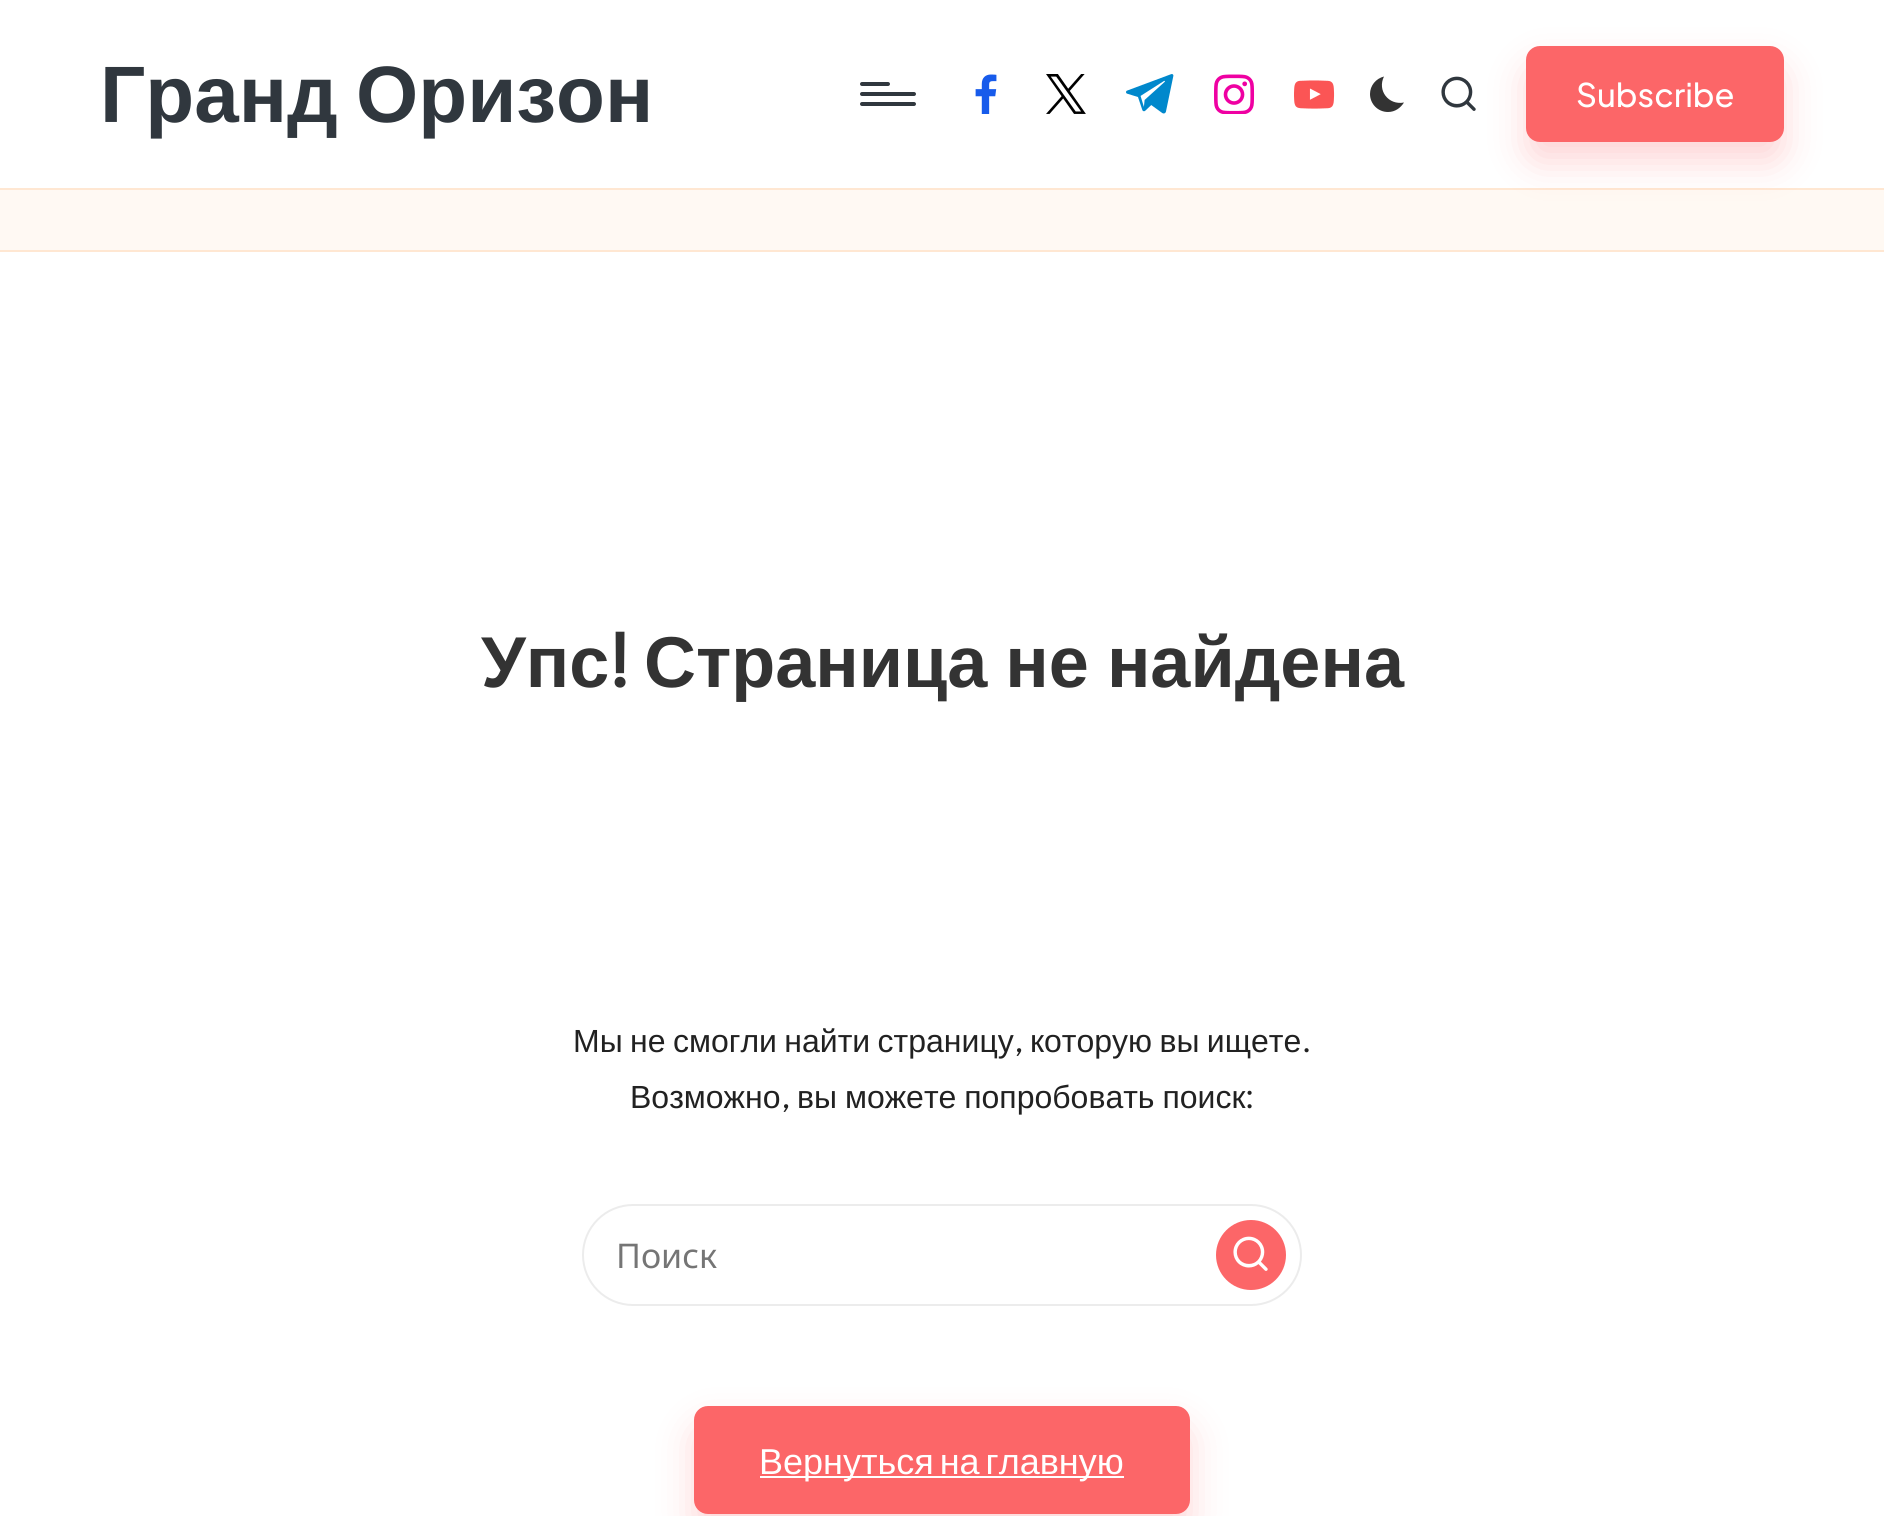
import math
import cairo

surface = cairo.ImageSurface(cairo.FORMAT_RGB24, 1884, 1516)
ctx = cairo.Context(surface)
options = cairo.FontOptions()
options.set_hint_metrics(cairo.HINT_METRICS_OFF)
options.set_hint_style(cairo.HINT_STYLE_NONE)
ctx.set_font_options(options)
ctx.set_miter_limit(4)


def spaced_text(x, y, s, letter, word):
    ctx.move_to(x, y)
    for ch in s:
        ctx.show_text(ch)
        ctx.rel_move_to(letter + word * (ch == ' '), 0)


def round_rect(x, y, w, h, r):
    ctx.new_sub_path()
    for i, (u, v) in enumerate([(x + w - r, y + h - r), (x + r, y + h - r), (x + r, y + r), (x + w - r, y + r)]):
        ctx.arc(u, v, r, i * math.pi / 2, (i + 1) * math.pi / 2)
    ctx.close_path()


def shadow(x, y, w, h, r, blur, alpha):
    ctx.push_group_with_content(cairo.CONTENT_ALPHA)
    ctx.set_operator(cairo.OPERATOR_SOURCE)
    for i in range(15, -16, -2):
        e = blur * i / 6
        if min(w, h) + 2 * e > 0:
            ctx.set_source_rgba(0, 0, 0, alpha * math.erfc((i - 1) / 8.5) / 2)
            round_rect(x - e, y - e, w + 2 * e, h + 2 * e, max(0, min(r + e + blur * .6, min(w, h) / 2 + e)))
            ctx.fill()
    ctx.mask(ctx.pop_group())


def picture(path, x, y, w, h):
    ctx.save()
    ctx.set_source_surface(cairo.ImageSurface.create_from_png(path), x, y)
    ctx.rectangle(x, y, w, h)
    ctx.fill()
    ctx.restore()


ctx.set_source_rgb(1, 1, 1)
ctx.paint()
ctx.select_font_face("Liberation Sans", cairo.FONT_SLANT_NORMAL, cairo.FONT_WEIGHT_BOLD)
ctx.set_font_size(80)
ctx.set_source_rgb(0.188, 0.216, 0.243)
spaced_text(100, 122, "Гранд Оризон", 0, -4)
round_rect(860, 92, 56, 4, 2)
ctx.fill()
round_rect(860, 82, 30, 4, 2)
ctx.fill()
round_rect(860, 102, 56, 4, 2)
ctx.fill()
picture("img1.png", 975, 74, 22, 40)
picture("img2.png", 1046, 74, 40, 40)
picture("img3.png", 1126, 74, 48, 40)
picture("img4.png", 1214, 74, 41, 40)
picture("img5.png", 1294, 80, 41, 29)
ctx.set_source_rgb(0.2, 0.2, 0.2)
ctx.new_path()
ctx.move_to(1404, 102.5)
ctx.curve_to(1388.5, 105.5, 1377, 90.5, 1384, 76.5)
ctx.curve_to(1376, 78.5, 1370, 85.5, 1370, 94)
ctx.curve_to(1370, 104, 1378, 112, 1388, 112)
ctx.curve_to(1395, 112, 1400.5, 108, 1404, 102.5)
ctx.close_path()
ctx.fill()
picture("img6.png", 1441, 76, 35, 35)
ctx.set_source_rgb(1, 0.976, 0.953)
ctx.rectangle(0, 190, 1884, 60)
ctx.fill()
ctx.set_source_rgb(1, 0.906, 0.824)
ctx.rectangle(0, 188, 1884, 2)
ctx.fill()
ctx.set_source_rgb(0.988, 0.4, 0.408)
shadow(1526, 66, 258, 96, 14, 18, 0.27)
ctx.set_source_rgb(0.988, 0.4, 0.408)
round_rect(1527, 47, 256, 94, 13)
ctx.fill_preserve()
ctx.stroke()
ctx.select_font_face("Plus Jakarta Sans Medium")
ctx.set_font_size(32.5)
ctx.set_source_rgb(1, 1, 1)
ctx.move_to(1576, 107)
ctx.show_text("Subscribe")
ctx.set_source_rgb(1, 0.906, 0.824)
ctx.rectangle(0, 250, 1884, 2)
ctx.fill()
ctx.select_font_face("Liberation Sans", cairo.FONT_SLANT_NORMAL, cairo.FONT_WEIGHT_BOLD)
ctx.set_font_size(72)
ctx.set_source_rgb(0.2, 0.2, 0.2)
ctx.move_to(481, 687)
ctx.show_text("Упс")
ctx.select_font_face("Be Vietnam Pro", cairo.FONT_SLANT_NORMAL, cairo.FONT_WEIGHT_BOLD)
ctx.move_to(609, 687)
ctx.show_text("!")
ctx.select_font_face("Liberation Sans", cairo.FONT_SLANT_NORMAL, cairo.FONT_WEIGHT_BOLD)
spaced_text(644, 687, "Страница не найдена", 0, -2)
ctx.select_font_face("Liberation Sans")
ctx.set_font_size(32)
ctx.set_source_rgb(0.129, 0.129, 0.129)
spaced_text(573, 1052, "Мы не смогли найти страницу", 0, -1.5)
ctx.select_font_face("Be Vietnam Pro")
ctx.move_to(1014, 1052)
ctx.show_text(",")
ctx.select_font_face("Liberation Sans")
spaced_text(1030, 1052, "которую вы ищете", 0, -1.5)
ctx.select_font_face("Be Vietnam Pro")
ctx.move_to(1302, 1052)
ctx.show_text(".")
ctx.select_font_face("Liberation Sans")
ctx.move_to(630, 1108)
ctx.show_text("Возможно")
ctx.select_font_face("Be Vietnam Pro")
ctx.move_to(781, 1108)
ctx.show_text(",")
ctx.select_font_face("Liberation Sans")
spaced_text(797, 1108, "вы можете попробовать поиск", 0, -1)
ctx.select_font_face("Be Vietnam Pro")
ctx.move_to(1245, 1108)
ctx.show_text(":")
round_rect(583, 1205, 718, 100, 50)
ctx.set_source_rgb(0.922, 0.922, 0.922)
ctx.stroke()
ctx.select_font_face("Noto Sans")
ctx.set_font_size(34)
ctx.set_source_rgb(0.459, 0.459, 0.459)
ctx.move_to(616, 1268)
ctx.show_text("Поиск")
ctx.set_source_rgb(0.988, 0.4, 0.408)
ctx.new_path()
ctx.arc(1251, 1255, 35, 0, 2 * math.pi)
ctx.fill()
picture("img7.png", 1233, 1236, 35, 35)
ctx.set_source_rgb(0.988, 0.4, 0.408)
shadow(694, 1426, 496, 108, 14, 18, 0.27)
ctx.set_source_rgb(0.988, 0.4, 0.408)
round_rect(695, 1407, 494, 106, 13)
ctx.fill_preserve()
ctx.stroke()
ctx.set_source_rgb(1, 1, 1)
ctx.rectangle(760, 1476, 364, 2)
ctx.fill()
ctx.select_font_face("Liberation Sans")
ctx.set_font_size(36)
spaced_text(759, 1474, "Вернуться на главную", 0, -4)
surface.write_to_png("page.png")
